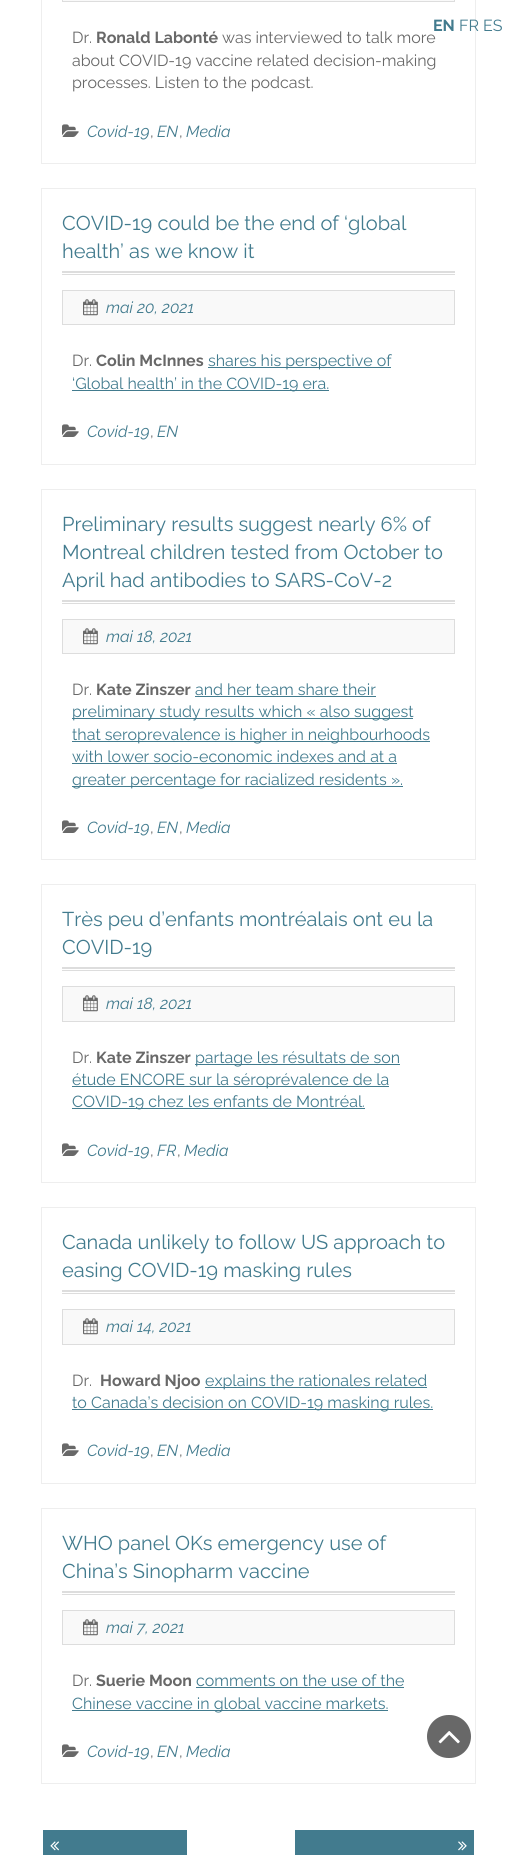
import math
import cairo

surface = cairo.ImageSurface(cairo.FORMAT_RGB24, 517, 1855)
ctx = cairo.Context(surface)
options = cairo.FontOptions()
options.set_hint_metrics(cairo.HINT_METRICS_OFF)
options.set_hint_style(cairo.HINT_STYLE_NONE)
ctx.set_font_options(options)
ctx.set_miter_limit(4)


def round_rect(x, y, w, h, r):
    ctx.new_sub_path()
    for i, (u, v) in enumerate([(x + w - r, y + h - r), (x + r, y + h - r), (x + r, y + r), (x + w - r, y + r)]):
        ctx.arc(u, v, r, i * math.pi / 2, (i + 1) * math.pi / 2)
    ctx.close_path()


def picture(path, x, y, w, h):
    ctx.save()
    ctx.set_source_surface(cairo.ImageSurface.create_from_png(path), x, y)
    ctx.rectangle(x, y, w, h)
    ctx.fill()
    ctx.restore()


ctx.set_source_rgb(1, 1, 1)
ctx.paint()
ctx.rectangle(41.5, -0.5, 434, 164)
ctx.set_source_rgb(0.933, 0.933, 0.933)
ctx.set_line_width(1)
ctx.stroke()
ctx.select_font_face("Raleway", cairo.FONT_SLANT_NORMAL, cairo.FONT_WEIGHT_BOLD)
ctx.set_font_size(16)
ctx.set_source_rgb(0.259, 0.482, 0.557)
ctx.move_to(433, 31)
ctx.show_text("EN")
ctx.select_font_face("Raleway")
ctx.move_to(459, 31)
ctx.show_text("FR ES")
ctx.set_source_rgb(0.976, 0.976, 0.976)
ctx.rectangle(62.5, -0.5, 392, 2)
ctx.fill_preserve()
ctx.set_source_rgb(0.867, 0.867, 0.867)
ctx.stroke()
ctx.set_source_rgb(0.408, 0.408, 0.408)
ctx.move_to(72, 43)
ctx.show_text("Dr.")
ctx.select_font_face("Raleway", cairo.FONT_SLANT_NORMAL, cairo.FONT_WEIGHT_BOLD)
ctx.move_to(96, 43)
ctx.show_text("Ronald Labonté")
ctx.select_font_face("Raleway")
ctx.move_to(222, 43)
ctx.show_text("was interviewed to talk more")
ctx.move_to(72, 66)
ctx.show_text("about COVID-19 vaccine related decision-making")
ctx.move_to(72, 88)
ctx.show_text("processes. Listen to the podcast.")
picture("img1.png", 62, 124, 17, 13)
ctx.select_font_face("Raleway", cairo.FONT_SLANT_ITALIC)
ctx.set_source_rgb(0.259, 0.482, 0.557)
ctx.move_to(87, 137)
ctx.show_text("Covid-19")
ctx.select_font_face("Raleway")
ctx.set_source_rgb(0.408, 0.408, 0.408)
ctx.move_to(150, 137)
ctx.show_text(",")
ctx.select_font_face("Raleway", cairo.FONT_SLANT_ITALIC)
ctx.set_source_rgb(0.259, 0.482, 0.557)
ctx.move_to(157, 137)
ctx.show_text("EN")
ctx.select_font_face("Raleway")
ctx.set_source_rgb(0.408, 0.408, 0.408)
ctx.move_to(179, 137)
ctx.show_text(",")
ctx.select_font_face("Raleway", cairo.FONT_SLANT_ITALIC)
ctx.set_source_rgb(0.259, 0.482, 0.557)
ctx.move_to(186, 137)
ctx.show_text("Media")
ctx.rectangle(41.5, 188.5, 434, 276)
ctx.set_source_rgb(0.933, 0.933, 0.933)
ctx.stroke()
ctx.set_source_rgb(0.867, 0.867, 0.867)
ctx.rectangle(62, 274, 393, 1)
ctx.fill()
ctx.select_font_face("Raleway")
ctx.set_font_size(20)
ctx.set_source_rgb(0.259, 0.482, 0.557)
ctx.move_to(62, 230)
ctx.show_text("COVID-19 could be the end of ‘global")
ctx.move_to(62, 258)
ctx.show_text("health’ as we know it")
ctx.set_source_rgb(0.867, 0.867, 0.867)
ctx.rectangle(62, 271, 393, 2)
ctx.fill()
ctx.set_source_rgb(0.976, 0.976, 0.976)
ctx.rectangle(62.5, 290.5, 392, 34)
ctx.fill_preserve()
ctx.set_source_rgb(0.867, 0.867, 0.867)
ctx.stroke()
picture("img2.png", 83, 299, 15, 17)
ctx.select_font_face("Raleway", cairo.FONT_SLANT_ITALIC)
ctx.set_font_size(16)
ctx.set_source_rgb(0.259, 0.482, 0.557)
ctx.move_to(106, 313)
ctx.show_text("mai 20, 2021")
ctx.select_font_face("Raleway")
ctx.set_source_rgb(0.408, 0.408, 0.408)
ctx.move_to(72, 366)
ctx.show_text("Dr.")
ctx.select_font_face("Raleway", cairo.FONT_SLANT_NORMAL, cairo.FONT_WEIGHT_BOLD)
ctx.move_to(96, 366)
ctx.show_text("Colin McInnes")
ctx.set_source_rgb(0.259, 0.482, 0.557)
ctx.rectangle(208, 367, 183, 1)
ctx.fill()
ctx.select_font_face("Raleway")
ctx.move_to(208, 366)
ctx.show_text("shares his perspective of")
ctx.rectangle(72, 390, 257, 1)
ctx.fill()
ctx.move_to(72, 389)
ctx.show_text("‘Global health’ in the COVID-19 era.")
picture("img1.png", 62, 424, 17, 13)
ctx.select_font_face("Raleway", cairo.FONT_SLANT_ITALIC)
ctx.move_to(87, 437)
ctx.show_text("Covid-19")
ctx.select_font_face("Raleway")
ctx.set_source_rgb(0.408, 0.408, 0.408)
ctx.move_to(150, 437)
ctx.show_text(",")
ctx.select_font_face("Raleway", cairo.FONT_SLANT_ITALIC)
ctx.set_source_rgb(0.259, 0.482, 0.557)
ctx.move_to(157, 437)
ctx.show_text("EN")
ctx.rectangle(41.5, 489.5, 434, 370)
ctx.set_source_rgb(0.933, 0.933, 0.933)
ctx.stroke()
ctx.set_source_rgb(0.867, 0.867, 0.867)
ctx.rectangle(62, 603, 393, 1)
ctx.fill()
ctx.select_font_face("Raleway")
ctx.set_font_size(20)
ctx.set_source_rgb(0.259, 0.482, 0.557)
ctx.move_to(62, 531)
ctx.show_text("Preliminary results suggest nearly 6% of")
ctx.move_to(62, 559)
ctx.show_text("Montreal children tested from October to")
ctx.move_to(62, 587)
ctx.show_text("April had antibodies to SARS-CoV-2")
ctx.set_source_rgb(0.867, 0.867, 0.867)
ctx.rectangle(62, 600, 393, 2)
ctx.fill()
ctx.set_source_rgb(0.976, 0.976, 0.976)
ctx.rectangle(62.5, 619.5, 392, 34)
ctx.fill_preserve()
ctx.set_source_rgb(0.867, 0.867, 0.867)
ctx.stroke()
picture("img2.png", 83, 628, 15, 17)
ctx.select_font_face("Raleway", cairo.FONT_SLANT_ITALIC)
ctx.set_font_size(16)
ctx.set_source_rgb(0.259, 0.482, 0.557)
ctx.move_to(106, 642)
ctx.show_text("mai 18, 2021")
ctx.select_font_face("Raleway")
ctx.set_source_rgb(0.408, 0.408, 0.408)
ctx.move_to(72, 695)
ctx.show_text("Dr.")
ctx.select_font_face("Raleway", cairo.FONT_SLANT_NORMAL, cairo.FONT_WEIGHT_BOLD)
ctx.move_to(96, 695)
ctx.show_text("Kate Zinszer")
ctx.select_font_face("Raleway")
ctx.set_source_rgb(0.259, 0.482, 0.557)
ctx.move_to(195, 695)
ctx.show_text("and her team share their")
ctx.rectangle(195, 696, 181, 1)
ctx.fill()
ctx.rectangle(72, 718, 341, 1)
ctx.fill()
ctx.move_to(72, 717)
ctx.show_text("preliminary study results which « also suggest")
ctx.rectangle(72, 741, 358, 1)
ctx.fill()
ctx.move_to(72, 740)
ctx.show_text("that seroprevalence is higher in neighbourhoods")
ctx.move_to(72, 762)
ctx.show_text("with lower socio-economic indexes and at a")
ctx.rectangle(72, 763, 325, 1)
ctx.fill()
ctx.rectangle(72, 786, 331, 1)
ctx.fill()
ctx.move_to(72, 785)
ctx.show_text("greater percentage for racialized residents ».")
picture("img1.png", 62, 820, 17, 13)
ctx.select_font_face("Raleway", cairo.FONT_SLANT_ITALIC)
ctx.move_to(87, 833)
ctx.show_text("Covid-19")
ctx.select_font_face("Raleway")
ctx.set_source_rgb(0.408, 0.408, 0.408)
ctx.move_to(150, 833)
ctx.show_text(",")
ctx.select_font_face("Raleway", cairo.FONT_SLANT_ITALIC)
ctx.set_source_rgb(0.259, 0.482, 0.557)
ctx.move_to(157, 833)
ctx.show_text("EN")
ctx.select_font_face("Raleway")
ctx.set_source_rgb(0.408, 0.408, 0.408)
ctx.move_to(179, 833)
ctx.show_text(",")
ctx.select_font_face("Raleway", cairo.FONT_SLANT_ITALIC)
ctx.set_source_rgb(0.259, 0.482, 0.557)
ctx.move_to(186, 833)
ctx.show_text("Media")
ctx.rectangle(41.5, 884.5, 434, 298)
ctx.set_source_rgb(0.933, 0.933, 0.933)
ctx.stroke()
ctx.set_source_rgb(0.867, 0.867, 0.867)
ctx.rectangle(62, 970, 393, 1)
ctx.fill()
ctx.select_font_face("Raleway")
ctx.set_font_size(20)
ctx.set_source_rgb(0.259, 0.482, 0.557)
ctx.move_to(62, 926)
ctx.show_text("Très peu d’enfants montréalais ont eu la")
ctx.move_to(62, 954)
ctx.show_text("COVID-19")
ctx.set_source_rgb(0.867, 0.867, 0.867)
ctx.rectangle(62, 967, 393, 2)
ctx.fill()
ctx.set_source_rgb(0.976, 0.976, 0.976)
ctx.rectangle(62.5, 986.5, 392, 35)
ctx.fill_preserve()
ctx.set_source_rgb(0.867, 0.867, 0.867)
ctx.stroke()
picture("img2.png", 83, 995, 15, 17)
ctx.select_font_face("Raleway", cairo.FONT_SLANT_ITALIC)
ctx.set_font_size(16)
ctx.set_source_rgb(0.259, 0.482, 0.557)
ctx.move_to(106, 1009)
ctx.show_text("mai 18, 2021")
ctx.select_font_face("Raleway")
ctx.set_source_rgb(0.408, 0.408, 0.408)
ctx.move_to(72, 1063)
ctx.show_text("Dr.")
ctx.select_font_face("Raleway", cairo.FONT_SLANT_NORMAL, cairo.FONT_WEIGHT_BOLD)
ctx.move_to(96, 1063)
ctx.show_text("Kate Zinszer")
ctx.set_source_rgb(0.259, 0.482, 0.557)
ctx.rectangle(195, 1064, 205, 1)
ctx.fill()
ctx.select_font_face("Raleway")
ctx.move_to(195, 1063)
ctx.show_text("partage les résultats de son")
ctx.rectangle(72, 1086, 317, 1)
ctx.fill()
ctx.move_to(72, 1085)
ctx.show_text("étude ENCORE sur la séroprévalence de la")
ctx.rectangle(72, 1108, 293, 1)
ctx.fill()
ctx.move_to(72, 1107)
ctx.show_text("COVID-19 chez les enfants de Montréal.")
picture("img1.png", 62, 1143, 17, 13)
ctx.select_font_face("Raleway", cairo.FONT_SLANT_ITALIC)
ctx.move_to(87, 1156)
ctx.show_text("Covid-19")
ctx.select_font_face("Raleway")
ctx.set_source_rgb(0.408, 0.408, 0.408)
ctx.move_to(150, 1156)
ctx.show_text(",")
ctx.select_font_face("Raleway", cairo.FONT_SLANT_ITALIC)
ctx.set_source_rgb(0.259, 0.482, 0.557)
ctx.move_to(157, 1156)
ctx.show_text("FR")
ctx.select_font_face("Raleway")
ctx.set_source_rgb(0.408, 0.408, 0.408)
ctx.move_to(177, 1156)
ctx.show_text(",")
ctx.select_font_face("Raleway", cairo.FONT_SLANT_ITALIC)
ctx.set_source_rgb(0.259, 0.482, 0.557)
ctx.move_to(184, 1156)
ctx.show_text("Media")
ctx.rectangle(41.5, 1207.5, 434, 276)
ctx.set_source_rgb(0.933, 0.933, 0.933)
ctx.stroke()
ctx.set_source_rgb(0.867, 0.867, 0.867)
ctx.rectangle(62, 1293, 393, 1)
ctx.fill()
ctx.select_font_face("Raleway")
ctx.set_font_size(20)
ctx.set_source_rgb(0.259, 0.482, 0.557)
ctx.move_to(62, 1249)
ctx.show_text("Canada unlikely to follow US approach to")
ctx.move_to(62, 1277)
ctx.show_text("easing COVID-19 masking rules")
ctx.set_source_rgb(0.867, 0.867, 0.867)
ctx.rectangle(62, 1290, 393, 2)
ctx.fill()
ctx.set_source_rgb(0.976, 0.976, 0.976)
ctx.rectangle(62.5, 1309.5, 392, 35)
ctx.fill_preserve()
ctx.set_source_rgb(0.867, 0.867, 0.867)
ctx.stroke()
picture("img2.png", 83, 1318, 15, 17)
ctx.select_font_face("Raleway", cairo.FONT_SLANT_ITALIC)
ctx.set_font_size(16)
ctx.set_source_rgb(0.259, 0.482, 0.557)
ctx.move_to(106, 1332)
ctx.show_text("mai 14, 2021")
ctx.select_font_face("Raleway")
ctx.set_source_rgb(0.408, 0.408, 0.408)
ctx.move_to(72, 1386)
ctx.show_text("Dr.")
ctx.select_font_face("Raleway", cairo.FONT_SLANT_NORMAL, cairo.FONT_WEIGHT_BOLD)
ctx.move_to(100, 1386)
ctx.show_text("Howard Njoo")
ctx.set_source_rgb(0.259, 0.482, 0.557)
ctx.rectangle(205, 1387, 222, 1)
ctx.fill()
ctx.select_font_face("Raleway")
ctx.move_to(205, 1386)
ctx.show_text("explains the rationales related")
ctx.rectangle(72, 1409, 361, 1)
ctx.fill()
ctx.move_to(72, 1408)
ctx.show_text("to Canada’s decision on COVID-19 masking rules.")
picture("img1.png", 62, 1443, 17, 13)
ctx.select_font_face("Raleway", cairo.FONT_SLANT_ITALIC)
ctx.move_to(87, 1456)
ctx.show_text("Covid-19")
ctx.select_font_face("Raleway")
ctx.set_source_rgb(0.408, 0.408, 0.408)
ctx.move_to(150, 1456)
ctx.show_text(",")
ctx.select_font_face("Raleway", cairo.FONT_SLANT_ITALIC)
ctx.set_source_rgb(0.259, 0.482, 0.557)
ctx.move_to(157, 1456)
ctx.show_text("EN")
ctx.select_font_face("Raleway")
ctx.set_source_rgb(0.408, 0.408, 0.408)
ctx.move_to(179, 1456)
ctx.show_text(",")
ctx.select_font_face("Raleway", cairo.FONT_SLANT_ITALIC)
ctx.set_source_rgb(0.259, 0.482, 0.557)
ctx.move_to(186, 1456)
ctx.show_text("Media")
ctx.rectangle(41.5, 1508.5, 434, 275)
ctx.set_source_rgb(0.933, 0.933, 0.933)
ctx.stroke()
ctx.set_source_rgb(0.867, 0.867, 0.867)
ctx.rectangle(62, 1594, 393, 1)
ctx.fill()
ctx.select_font_face("Raleway")
ctx.set_font_size(20)
ctx.set_source_rgb(0.259, 0.482, 0.557)
ctx.move_to(62, 1550)
ctx.show_text("WHO panel OKs emergency use of")
ctx.move_to(62, 1578)
ctx.show_text("China’s Sinopharm vaccine")
ctx.set_source_rgb(0.867, 0.867, 0.867)
ctx.rectangle(62, 1591, 393, 2)
ctx.fill()
ctx.set_source_rgb(0.976, 0.976, 0.976)
ctx.rectangle(62.5, 1610.5, 392, 34)
ctx.fill_preserve()
ctx.set_source_rgb(0.867, 0.867, 0.867)
ctx.stroke()
picture("img2.png", 83, 1619, 15, 17)
ctx.select_font_face("Raleway", cairo.FONT_SLANT_ITALIC)
ctx.set_font_size(16)
ctx.set_source_rgb(0.259, 0.482, 0.557)
ctx.move_to(106, 1633)
ctx.show_text("mai 7, 2021")
ctx.select_font_face("Raleway")
ctx.set_source_rgb(0.408, 0.408, 0.408)
ctx.move_to(72, 1686)
ctx.show_text("Dr.")
ctx.select_font_face("Raleway", cairo.FONT_SLANT_NORMAL, cairo.FONT_WEIGHT_BOLD)
ctx.move_to(96, 1686)
ctx.show_text("Suerie Moon")
ctx.select_font_face("Raleway")
ctx.set_source_rgb(0.259, 0.482, 0.557)
ctx.move_to(196, 1686)
ctx.show_text("comments on the use of the")
ctx.rectangle(196, 1687, 208, 1)
ctx.fill()
ctx.rectangle(72, 1710, 316, 1)
ctx.fill()
ctx.move_to(72, 1709)
ctx.show_text("Chinese vaccine in global vaccine markets.")
picture("img1.png", 62, 1744, 17, 13)
ctx.select_font_face("Raleway", cairo.FONT_SLANT_ITALIC)
ctx.move_to(87, 1757)
ctx.show_text("Covid-19")
ctx.select_font_face("Raleway")
ctx.set_source_rgb(0.408, 0.408, 0.408)
ctx.move_to(150, 1757)
ctx.show_text(",")
ctx.select_font_face("Raleway", cairo.FONT_SLANT_ITALIC)
ctx.set_source_rgb(0.259, 0.482, 0.557)
ctx.move_to(157, 1757)
ctx.show_text("EN")
ctx.select_font_face("Raleway")
ctx.set_source_rgb(0.408, 0.408, 0.408)
ctx.move_to(179, 1757)
ctx.show_text(",")
ctx.select_font_face("Raleway", cairo.FONT_SLANT_ITALIC)
ctx.set_source_rgb(0.259, 0.482, 0.557)
ctx.move_to(186, 1757)
ctx.show_text("Media")
ctx.rectangle(43, 1830, 144, 25)
ctx.fill()
picture("img3.png", 50, 1841, 9, 10)
ctx.rectangle(295, 1830, 179, 25)
ctx.fill()
picture("img4.png", 458, 1841, 9, 10)
ctx.set_source_rgb(0.408, 0.408, 0.408)
round_rect(427, 1715, 44, 43, 21.5)
ctx.fill()
picture("img5.png", 438, 1731, 22, 13)
surface.write_to_png("page.png")
